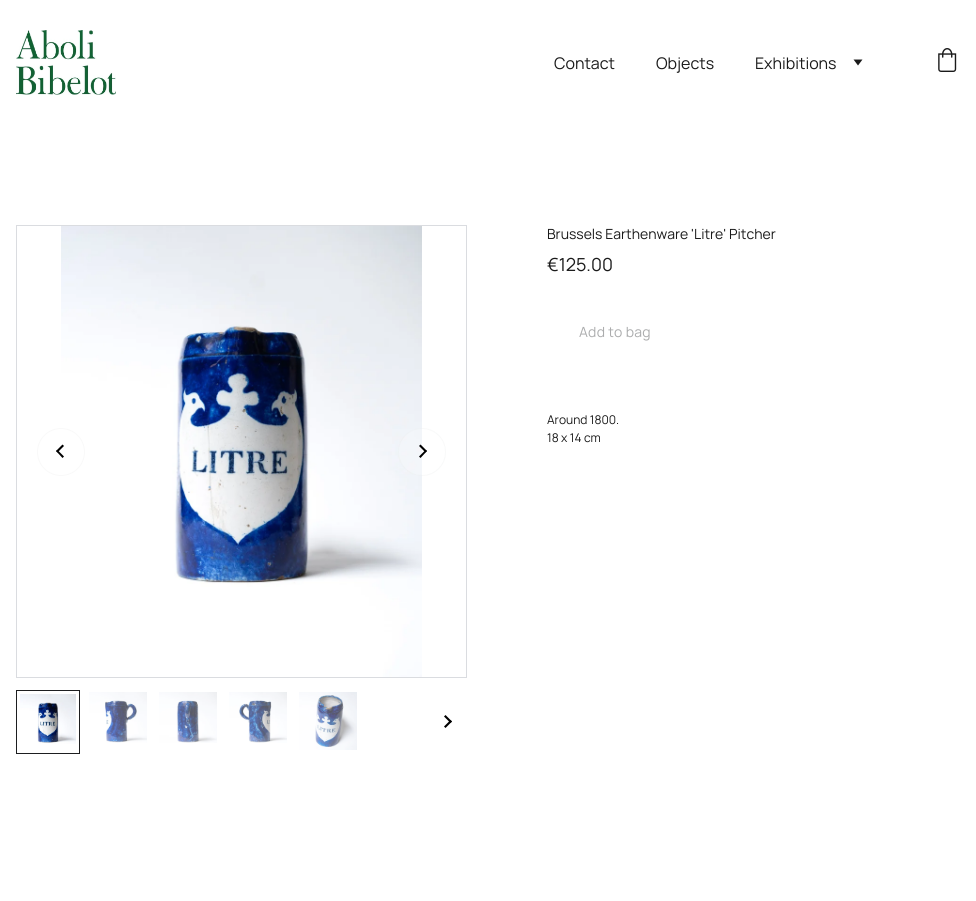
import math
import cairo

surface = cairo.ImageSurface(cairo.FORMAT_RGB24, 976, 901)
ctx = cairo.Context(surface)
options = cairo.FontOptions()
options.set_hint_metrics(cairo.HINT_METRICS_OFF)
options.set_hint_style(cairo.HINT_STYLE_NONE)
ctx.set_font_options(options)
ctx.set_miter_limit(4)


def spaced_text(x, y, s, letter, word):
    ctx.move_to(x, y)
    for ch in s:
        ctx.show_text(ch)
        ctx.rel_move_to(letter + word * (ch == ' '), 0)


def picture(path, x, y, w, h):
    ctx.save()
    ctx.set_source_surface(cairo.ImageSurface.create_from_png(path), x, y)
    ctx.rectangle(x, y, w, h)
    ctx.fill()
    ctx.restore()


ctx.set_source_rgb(1, 1, 1)
ctx.paint()
picture("img1.png", 16, 30, 100, 65)
ctx.select_font_face("Manrope ExtraLight")
ctx.set_font_size(16)
ctx.set_source_rgb(0.102, 0.102, 0.102)
ctx.move_to(554, 69)
ctx.show_text("Contact")
ctx.move_to(656, 69)
ctx.show_text("Objects")
ctx.move_to(755, 69)
ctx.show_text("Exhibitions")
ctx.new_path()
ctx.move_to(858, 65.5)
ctx.line_to(853.5, 59.5)
ctx.line_to(862.5, 59.5)
ctx.close_path()
ctx.fill()
picture("img2.png", 938, 48, 19, 24)
ctx.rectangle(16.5, 225.5, 450, 452)
ctx.set_source_rgb(0.855, 0.863, 0.878)
ctx.set_line_width(1)
ctx.stroke()
picture("img3.png", 61, 226, 361, 451)
ctx.arc(61, 452, 23.5, 0, 2 * math.pi)
ctx.set_source_rgb(0.973, 0.973, 0.976)
ctx.stroke()
ctx.set_source_rgb(0, 0, 0)
ctx.new_path()
ctx.move_to(62.5, 458)
ctx.line_to(56, 451)
ctx.line_to(57.5, 450)
ctx.line_to(64, 456.5)
ctx.close_path()
ctx.fill()
ctx.new_path()
ctx.move_to(57.5, 452.5)
ctx.line_to(56, 451)
ctx.line_to(62.5, 444.5)
ctx.line_to(64, 446)
ctx.close_path()
ctx.fill()
ctx.arc(422, 452, 23.5, 0, 2 * math.pi)
ctx.set_source_rgba(0.855, 0.863, 0.878, 0.2)
ctx.stroke()
ctx.set_source_rgba(1, 1, 1, 0.2)
ctx.arc(422, 452, 24, 0, 2 * math.pi)
ctx.fill()
ctx.set_source_rgb(0, 0, 0)
ctx.new_path()
ctx.move_to(420.5, 444.5)
ctx.line_to(427, 451)
ctx.line_to(425.5, 452.5)
ctx.line_to(419, 446)
ctx.close_path()
ctx.fill()
ctx.new_path()
ctx.move_to(425.5, 450)
ctx.line_to(427, 451)
ctx.line_to(420.5, 458)
ctx.line_to(419, 456.5)
ctx.close_path()
ctx.fill()
ctx.rectangle(16.5, 690.5, 63, 63)
ctx.set_source_rgb(0.114, 0.118, 0.125)
ctx.stroke()
picture("img4.png", 20, 694, 56, 50)
picture("img5.png", 89, 692, 58, 51)
picture("img6.png", 159, 692, 58, 51)
picture("img7.png", 229, 692, 58, 51)
picture("img8.png", 299, 692, 58, 58)
ctx.set_source_rgb(0, 0, 0)
ctx.new_path()
ctx.move_to(445.5, 715)
ctx.line_to(452, 721.5)
ctx.line_to(450.5, 723)
ctx.line_to(444, 716.5)
ctx.close_path()
ctx.fill()
ctx.new_path()
ctx.move_to(450.5, 720)
ctx.line_to(452, 721.5)
ctx.line_to(445.5, 728)
ctx.line_to(444, 726.5)
ctx.close_path()
ctx.fill()
ctx.set_font_size(14)
ctx.set_source_rgb(0.102, 0.102, 0.102)
ctx.move_to(547, 239)
ctx.show_text("Brussels Earthenware 'Litre' Pitcher")
ctx.set_font_size(18)
ctx.move_to(547, 271)
ctx.show_text("€125.00")
ctx.set_font_size(14)
ctx.set_source_rgb(0.671, 0.675, 0.678)
spaced_text(579, 337, "Add to bag", 0.25, 0)
ctx.set_font_size(12)
ctx.set_source_rgb(0.102, 0.102, 0.102)
ctx.move_to(547, 424)
ctx.show_text("Around 1800.")
ctx.move_to(547, 442)
ctx.show_text("18 x 14 cm")
surface.write_to_png("page.png")
